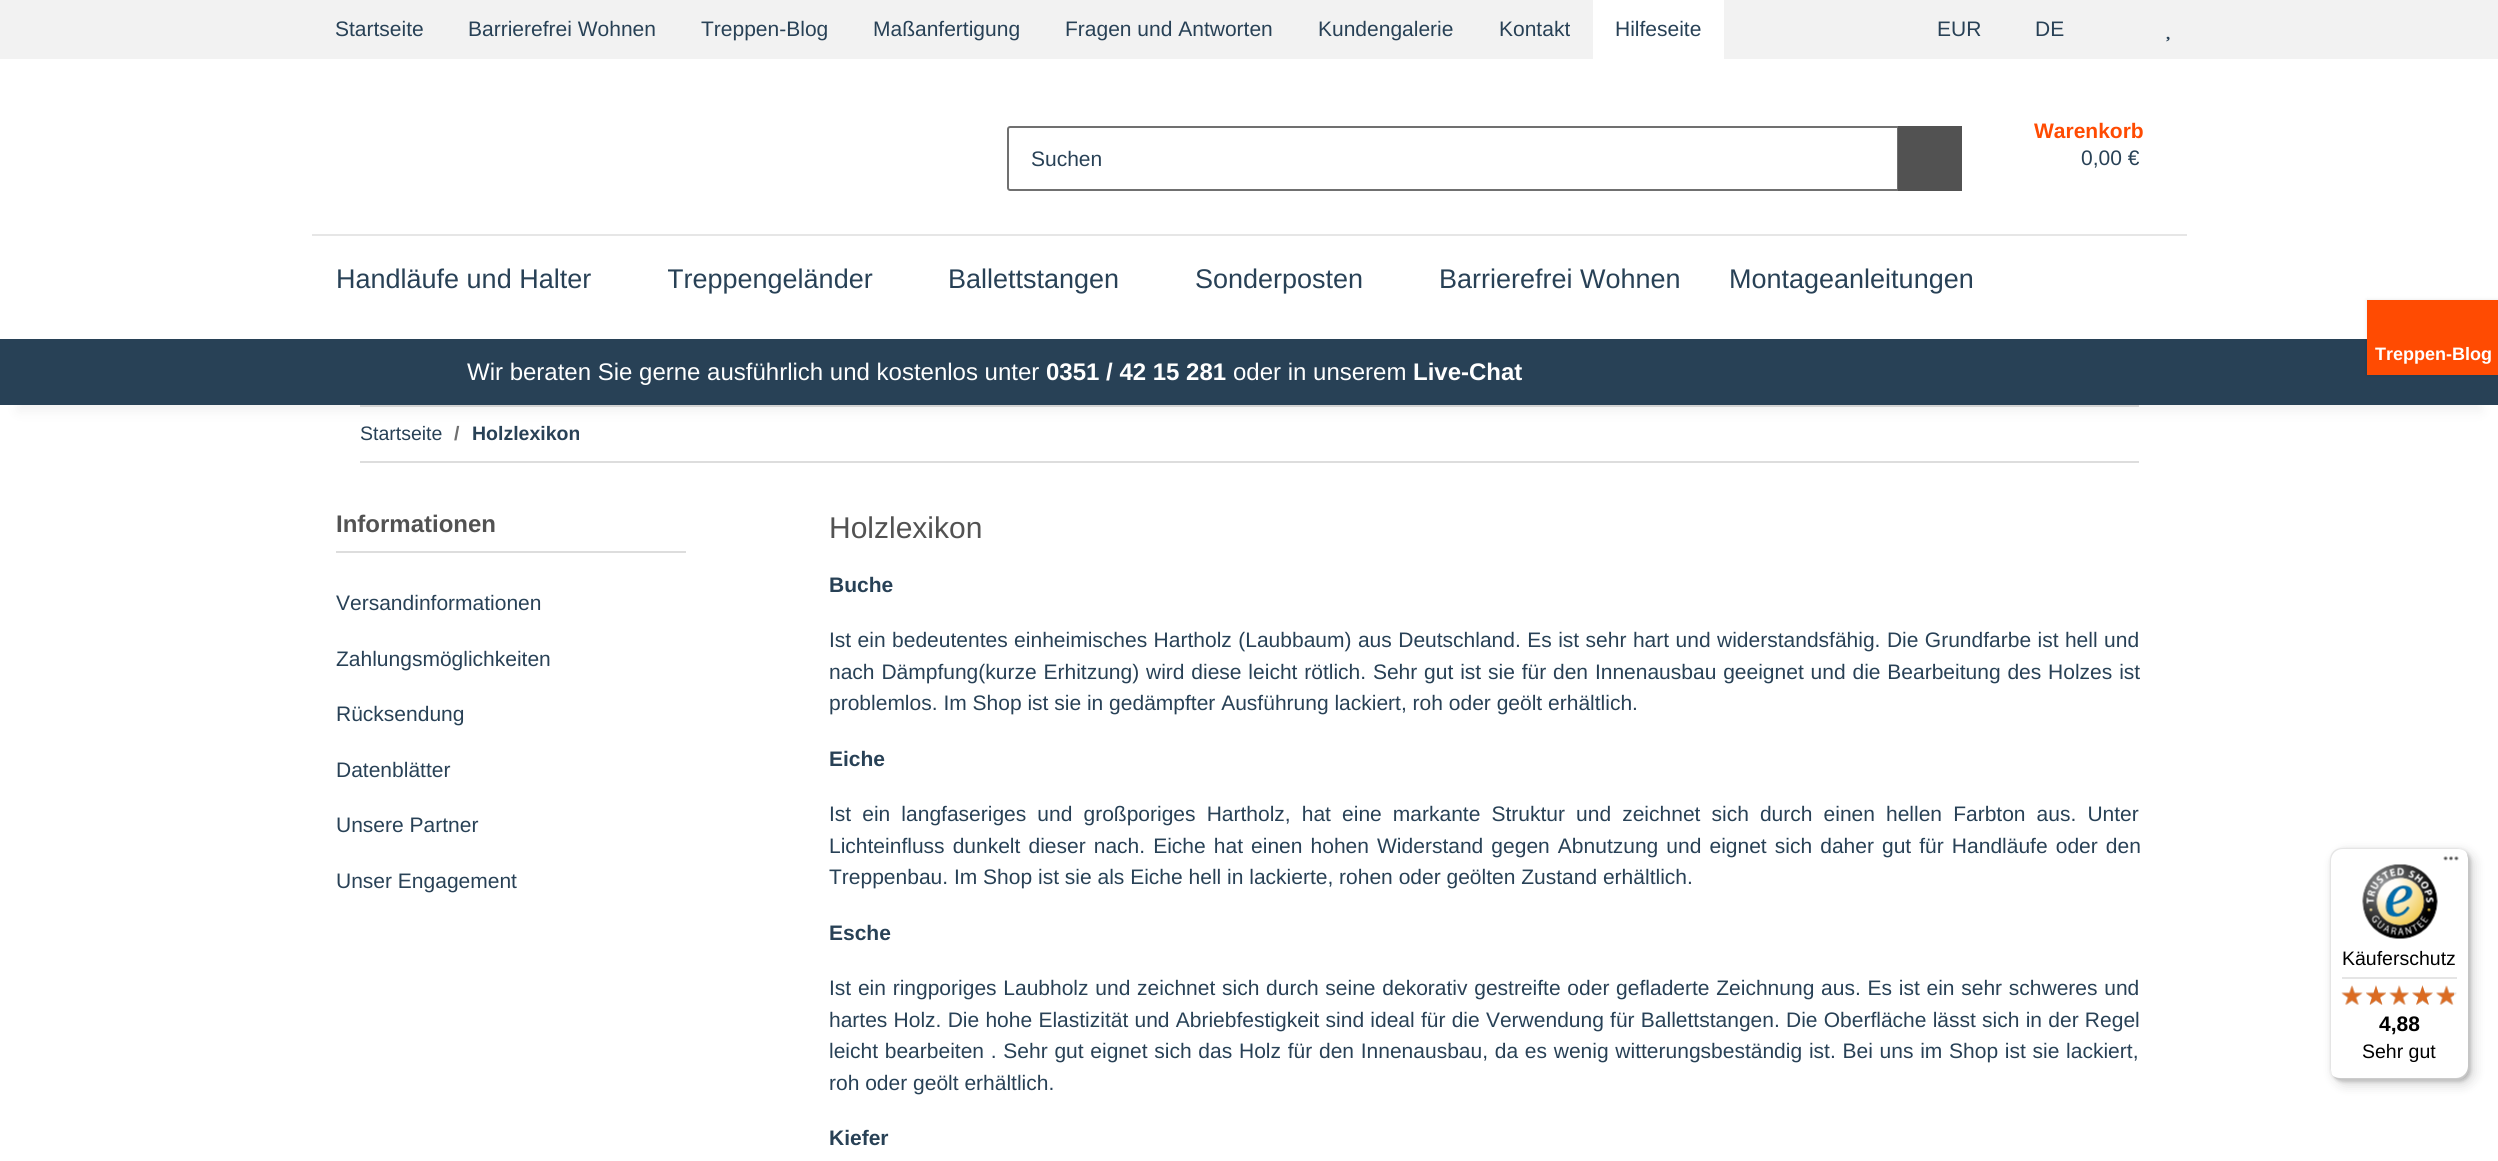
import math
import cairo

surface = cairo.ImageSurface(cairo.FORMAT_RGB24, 2498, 1161)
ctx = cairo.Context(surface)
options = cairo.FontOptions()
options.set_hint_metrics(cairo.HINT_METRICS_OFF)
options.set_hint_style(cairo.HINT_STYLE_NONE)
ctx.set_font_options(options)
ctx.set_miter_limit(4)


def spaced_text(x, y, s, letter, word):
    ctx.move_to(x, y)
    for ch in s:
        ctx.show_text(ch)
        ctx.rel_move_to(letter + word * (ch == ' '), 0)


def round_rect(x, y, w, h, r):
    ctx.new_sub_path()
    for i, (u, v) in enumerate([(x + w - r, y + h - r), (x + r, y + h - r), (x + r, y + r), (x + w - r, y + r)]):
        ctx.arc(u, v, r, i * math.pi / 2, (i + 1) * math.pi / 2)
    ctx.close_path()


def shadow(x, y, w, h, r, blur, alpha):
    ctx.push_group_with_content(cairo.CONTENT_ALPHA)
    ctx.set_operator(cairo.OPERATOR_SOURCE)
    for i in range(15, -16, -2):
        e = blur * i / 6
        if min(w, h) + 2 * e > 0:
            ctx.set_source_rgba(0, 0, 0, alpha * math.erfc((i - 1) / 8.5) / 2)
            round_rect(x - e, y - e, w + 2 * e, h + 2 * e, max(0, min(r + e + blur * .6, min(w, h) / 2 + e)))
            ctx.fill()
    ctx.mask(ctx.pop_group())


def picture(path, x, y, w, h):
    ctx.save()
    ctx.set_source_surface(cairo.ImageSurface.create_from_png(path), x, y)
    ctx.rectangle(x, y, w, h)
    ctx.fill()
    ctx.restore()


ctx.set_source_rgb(0.949, 0.949, 0.949)
ctx.paint()
ctx.select_font_face("Liberation Sans")
ctx.set_font_size(21)
ctx.set_source_rgb(0.157, 0.255, 0.337)
ctx.move_to(335, 36)
ctx.show_text("Startseite")
ctx.move_to(468, 36)
ctx.show_text("Barrierefrei Wohnen")
ctx.move_to(701, 36)
ctx.show_text("Treppen-Blog")
ctx.move_to(873, 36)
ctx.show_text("Maßanfertigung")
ctx.move_to(1065, 36)
ctx.show_text("Fragen und Antworten")
ctx.move_to(1318, 36)
ctx.show_text("Kundengalerie")
ctx.move_to(1499, 36)
ctx.show_text("Kontakt")
ctx.set_source_rgb(1, 1, 1)
ctx.rectangle(1593, 0, 131, 59)
ctx.fill()
ctx.set_source_rgb(0.157, 0.255, 0.337)
ctx.move_to(1615, 36)
ctx.show_text("Hilfeseite")
ctx.move_to(1937, 36)
ctx.show_text("EUR")
ctx.move_to(2035, 36)
ctx.show_text("DE")
picture("img1.png", 2166, 36, 4, 6)
ctx.set_source_rgb(1, 1, 1)
ctx.rectangle(0, 405, 2498, 756)
ctx.fill()
ctx.set_source_rgb(0.867, 0.867, 0.867)
ctx.rectangle(360, 405, 1779, 2)
ctx.fill()
ctx.set_source_rgb(0, 0, 0)
shadow(18, 101, 2463, 310, 0, 7, 0.06)
ctx.set_source_rgb(1, 1, 1)
ctx.rectangle(0, 59, 2498, 280)
ctx.fill()
ctx.set_source_rgb(0.902, 0.902, 0.902)
ctx.rectangle(312, 234, 1875, 2)
ctx.fill()
ctx.new_path()
ctx.move_to(1010, 127)
ctx.line_to(1898, 127)
ctx.line_to(1898, 190)
ctx.line_to(1010, 190)
ctx.curve_to(1009, 190, 1008, 189, 1008, 188)
ctx.line_to(1008, 129)
ctx.curve_to(1008, 128, 1009, 127, 1010, 127)
ctx.close_path()
ctx.set_source_rgb(0.439, 0.439, 0.439)
ctx.stroke()
ctx.set_source_rgb(0.157, 0.255, 0.337)
ctx.move_to(1031, 166)
ctx.show_text("Suchen")
ctx.set_source_rgb(0.322, 0.322, 0.322)
ctx.rectangle(1898, 126, 64, 65)
ctx.fill()
ctx.select_font_face("Liberation Sans", cairo.FONT_SLANT_NORMAL, cairo.FONT_WEIGHT_BOLD)
ctx.set_source_rgb(1, 0.294, 0.008)
ctx.move_to(2034, 138)
ctx.show_text("Warenkorb")
ctx.select_font_face("Liberation Sans")
ctx.set_source_rgb(0.157, 0.255, 0.337)
ctx.move_to(2081, 165)
ctx.show_text("0,00 €")
ctx.set_font_size(27)
ctx.move_to(336, 288)
ctx.show_text("Handläufe und Halter")
ctx.save()
ctx.rectangle(668, 260, 205, 40)
ctx.clip()
ctx.move_to(667, 288)
ctx.show_text("Treppengeländer")
ctx.restore()
ctx.move_to(948, 288)
ctx.show_text("Ballettstangen")
ctx.move_to(1195, 288)
ctx.show_text("Sonderposten")
ctx.move_to(1439, 288)
ctx.show_text("Barrierefrei Wohnen")
ctx.move_to(1729, 288)
ctx.show_text("Montageanleitungen")
ctx.rectangle(0, 339, 2498, 66)
ctx.fill()
ctx.set_font_size(24)
ctx.set_source_rgb(1, 1, 1)
ctx.move_to(467, 380)
ctx.show_text("Wir beraten Sie gerne ausführlich und kostenlos unter")
ctx.select_font_face("Liberation Sans", cairo.FONT_SLANT_NORMAL, cairo.FONT_WEIGHT_BOLD)
ctx.move_to(1046, 380)
ctx.show_text("0351 / 42 15 281")
ctx.select_font_face("Liberation Sans")
ctx.move_to(1233, 380)
ctx.show_text("oder in unserem")
ctx.select_font_face("Liberation Sans", cairo.FONT_SLANT_NORMAL, cairo.FONT_WEIGHT_BOLD)
ctx.move_to(1413, 380)
ctx.show_text("Live-Chat")
ctx.set_source_rgb(0, 0, 0)
shadow(2367, 300, 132, 75, 0, 2, 0.1)
ctx.set_source_rgb(1, 0.294, 0.008)
ctx.rectangle(2367, 300, 131, 75)
ctx.fill()
ctx.set_font_size(18)
ctx.set_source_rgb(1, 1, 1)
ctx.move_to(2375, 360)
ctx.show_text("Treppen-Blog")
ctx.set_source_rgb(0.867, 0.867, 0.867)
ctx.rectangle(360, 461, 1779, 2)
ctx.fill()
ctx.select_font_face("Liberation Sans")
ctx.set_font_size(19.5)
ctx.set_source_rgb(0.157, 0.255, 0.337)
ctx.move_to(360, 440)
ctx.show_text("Startseite")
ctx.select_font_face("Liberation Sans", cairo.FONT_SLANT_NORMAL, cairo.FONT_WEIGHT_BOLD)
ctx.set_source_rgb(0.439, 0.439, 0.439)
ctx.move_to(454, 440)
ctx.show_text("/")
ctx.set_source_rgb(0.157, 0.255, 0.337)
ctx.move_to(472, 440)
ctx.show_text("Holzlexikon")
ctx.set_source_rgb(0.867, 0.867, 0.867)
ctx.rectangle(336, 551, 350, 2)
ctx.fill()
ctx.set_font_size(24)
ctx.set_source_rgb(0.322, 0.322, 0.322)
ctx.move_to(336, 532)
ctx.show_text("Informationen")
ctx.select_font_face("Liberation Sans")
ctx.set_font_size(21)
ctx.set_source_rgb(0.157, 0.255, 0.337)
ctx.move_to(336, 610)
ctx.show_text("Versandinformationen")
ctx.move_to(336, 666)
ctx.show_text("Zahlungsmöglichkeiten")
ctx.move_to(336, 721)
ctx.show_text("Rücksendung")
ctx.move_to(336, 777)
ctx.show_text("Datenblätter")
ctx.move_to(336, 832)
ctx.show_text("Unsere Partner")
ctx.move_to(336, 888)
ctx.show_text("Unser Engagement")
ctx.set_font_size(30)
ctx.set_source_rgb(0.322, 0.322, 0.322)
ctx.move_to(829, 538)
ctx.show_text("Holzlexikon")
ctx.select_font_face("Liberation Sans", cairo.FONT_SLANT_NORMAL, cairo.FONT_WEIGHT_BOLD)
ctx.set_font_size(21)
ctx.set_source_rgb(0.157, 0.255, 0.337)
ctx.move_to(829, 592)
ctx.show_text("Buche")
ctx.select_font_face("Liberation Sans")
spaced_text(829, 647, "Ist ein bedeutentes einheimisches Hartholz (Laubbaum) aus Deutschland. Es ist sehr hart und widerstandsfähig. Die Grundfarbe ist hell und", 0, 0.6)
spaced_text(829, 679, "nach Dämpfung(kurze Erhitzung) wird diese leicht rötlich. Sehr gut ist sie für den Innenausbau geeignet und die Bearbeitung des Holzes ist", 0, 1)
ctx.move_to(829, 710)
ctx.show_text("problemlos. Im Shop ist sie in gedämpfter Ausführung lackiert, roh oder geölt erhältlich.")
ctx.select_font_face("Liberation Sans", cairo.FONT_SLANT_NORMAL, cairo.FONT_WEIGHT_BOLD)
ctx.move_to(829, 766)
ctx.show_text("Eiche")
ctx.select_font_face("Liberation Sans")
spaced_text(829, 821, "Ist ein langfaseriges und großporiges Hartholz, hat eine markante Struktur und zeichnet sich durch einen hellen Farbton aus. Unter", 0, 5.25)
spaced_text(829, 853, "Lichteinfluss dunkelt dieser nach. Eiche hat einen hohen Widerstand gegen Abnutzung und eignet sich daher gut für Handläufe oder den", 0, 2.25)
ctx.move_to(829, 884)
ctx.show_text("Treppenbau. Im Shop ist sie als Eiche hell in lackierte, rohen oder geölten Zustand erhältlich.")
ctx.select_font_face("Liberation Sans", cairo.FONT_SLANT_NORMAL, cairo.FONT_WEIGHT_BOLD)
ctx.move_to(829, 940)
ctx.show_text("Esche")
ctx.select_font_face("Liberation Sans")
spaced_text(829, 995, "Ist ein ringporiges Laubholz und zeichnet sich durch seine dekorativ gestreifte oder gefladerte Zeichnung aus. Es ist ein sehr schweres und", 0, 0.9)
spaced_text(829, 1027, "hartes Holz. Die hohe Elastizität und Abriebfestigkeit sind ideal für die Verwendung für Ballettstangen. Die Oberfläche lässt sich in der Regel", 0, 0.4)
spaced_text(829, 1058, "leicht bearbeiten . Sehr gut eignet sich das Holz für den Innenausbau, da es wenig witterungsbeständig ist. Bei uns im Shop ist sie lackiert,", 0, 0.9)
ctx.move_to(829, 1090)
ctx.show_text("roh oder geölt erhältlich.")
ctx.select_font_face("Liberation Sans", cairo.FONT_SLANT_NORMAL, cairo.FONT_WEIGHT_BOLD)
ctx.move_to(829, 1145)
ctx.show_text("Kiefer")
ctx.set_source_rgb(0, 0, 0)
shadow(2334, 852, 140, 233, 12, 6, 0.15)
shadow(2331, 849, 140, 233, 12, 1.5, 0.15)
ctx.set_source_rgb(1, 1, 1)
round_rect(2330, 848, 139, 232, 12)
ctx.fill()
ctx.set_source_rgb(0.898, 0.898, 0.898)
ctx.new_path()
ctx.move_to(2343, 849)
ctx.line_to(2458, 849)
ctx.curve_to(2461, 849, 2463, 850, 2465, 851)
ctx.curve_to(2463, 849, 2460, 848, 2457, 848)
ctx.line_to(2342, 848)
ctx.curve_to(2335, 848, 2330, 853, 2330, 860)
ctx.line_to(2330, 1068)
ctx.curve_to(2330, 1070, 2331, 1073, 2332, 1075)
ctx.line_to(2331, 1070)
ctx.line_to(2331, 861)
ctx.curve_to(2331, 854, 2336, 849, 2343, 849)
ctx.close_path()
ctx.fill()
ctx.set_source_rgba(0, 0, 0, 0.2)
ctx.new_path()
ctx.move_to(2333, 1076)
ctx.curve_to(2335, 1078, 2338, 1080, 2342, 1080)
ctx.line_to(2457, 1080)
ctx.curve_to(2464, 1080, 2469, 1075, 2469, 1068)
ctx.line_to(2469, 860)
ctx.curve_to(2469, 858, 2468, 855, 2467, 854)
ctx.line_to(2468, 858)
ctx.line_to(2468, 1066)
ctx.curve_to(2468, 1073, 2462, 1078, 2456, 1078)
ctx.line_to(2340, 1078)
ctx.curve_to(2337, 1078, 2335, 1077, 2333, 1076)
ctx.close_path()
ctx.fill()
ctx.set_source_rgba(0.196, 0.196, 0.196, 0.2)
ctx.new_path()
ctx.move_to(2334, 1077)
ctx.curve_to(2336, 1079, 2339, 1080, 2342, 1080)
ctx.line_to(2457, 1080)
ctx.curve_to(2464, 1080, 2469, 1075, 2469, 1068)
ctx.line_to(2469, 860)
ctx.curve_to(2469, 857, 2468, 854, 2466, 852)
ctx.curve_to(2467, 854, 2468, 856, 2468, 859)
ctx.line_to(2468, 1067)
ctx.curve_to(2468, 1074, 2463, 1079, 2456, 1079)
ctx.line_to(2341, 1079)
ctx.curve_to(2338, 1079, 2336, 1078, 2334, 1077)
ctx.close_path()
ctx.fill()
ctx.set_source_rgba(1, 1, 1, 0.3)
ctx.new_path()
ctx.move_to(2334, 1077)
ctx.curve_to(2336, 1079, 2339, 1080, 2342, 1080)
ctx.line_to(2457, 1080)
ctx.curve_to(2464, 1080, 2469, 1075, 2469, 1068)
ctx.line_to(2469, 860)
ctx.curve_to(2469, 857, 2468, 854, 2466, 852)
ctx.curve_to(2467, 854, 2468, 856, 2468, 859)
ctx.line_to(2468, 1067)
ctx.curve_to(2468, 1074, 2463, 1079, 2456, 1079)
ctx.line_to(2341, 1079)
ctx.curve_to(2338, 1079, 2336, 1078, 2334, 1077)
ctx.close_path()
ctx.fill()
picture("img2.png", 2443, 856, 16, 5)
picture("img3.png", 2362, 864, 76, 75)
ctx.select_font_face("Liberation Sans")
ctx.set_font_size(19.5)
ctx.set_source_rgb(0, 0, 0)
ctx.move_to(2342, 965)
ctx.show_text("Käuferschutz")
ctx.set_source_rgb(0.898, 0.898, 0.898)
ctx.rectangle(2342, 977, 115, 2)
ctx.fill()
picture("img9.png", 2342, 986, 20, 19)
picture("img4.png", 2341, 985, 22, 20)
picture("img10.png", 2366, 985, 20, 20)
picture("img5.png", 2366, 985, 20, 20)
picture("img11.png", 2389, 985, 20, 20)
picture("img6.png", 2389, 985, 20, 20)
picture("img12.png", 2412, 985, 21, 20)
picture("img7.png", 2412, 985, 21, 20)
picture("img13.png", 2436, 986, 21, 19)
picture("img8.png", 2436, 985, 18, 20)
ctx.select_font_face("Liberation Sans", cairo.FONT_SLANT_NORMAL, cairo.FONT_WEIGHT_BOLD)
ctx.set_font_size(21)
ctx.set_source_rgb(0, 0, 0)
ctx.move_to(2379, 1031)
ctx.show_text("4,88")
ctx.select_font_face("Liberation Sans")
ctx.set_font_size(19.5)
ctx.move_to(2362, 1058)
ctx.show_text("Sehr gut")
surface.write_to_png("page.png")
